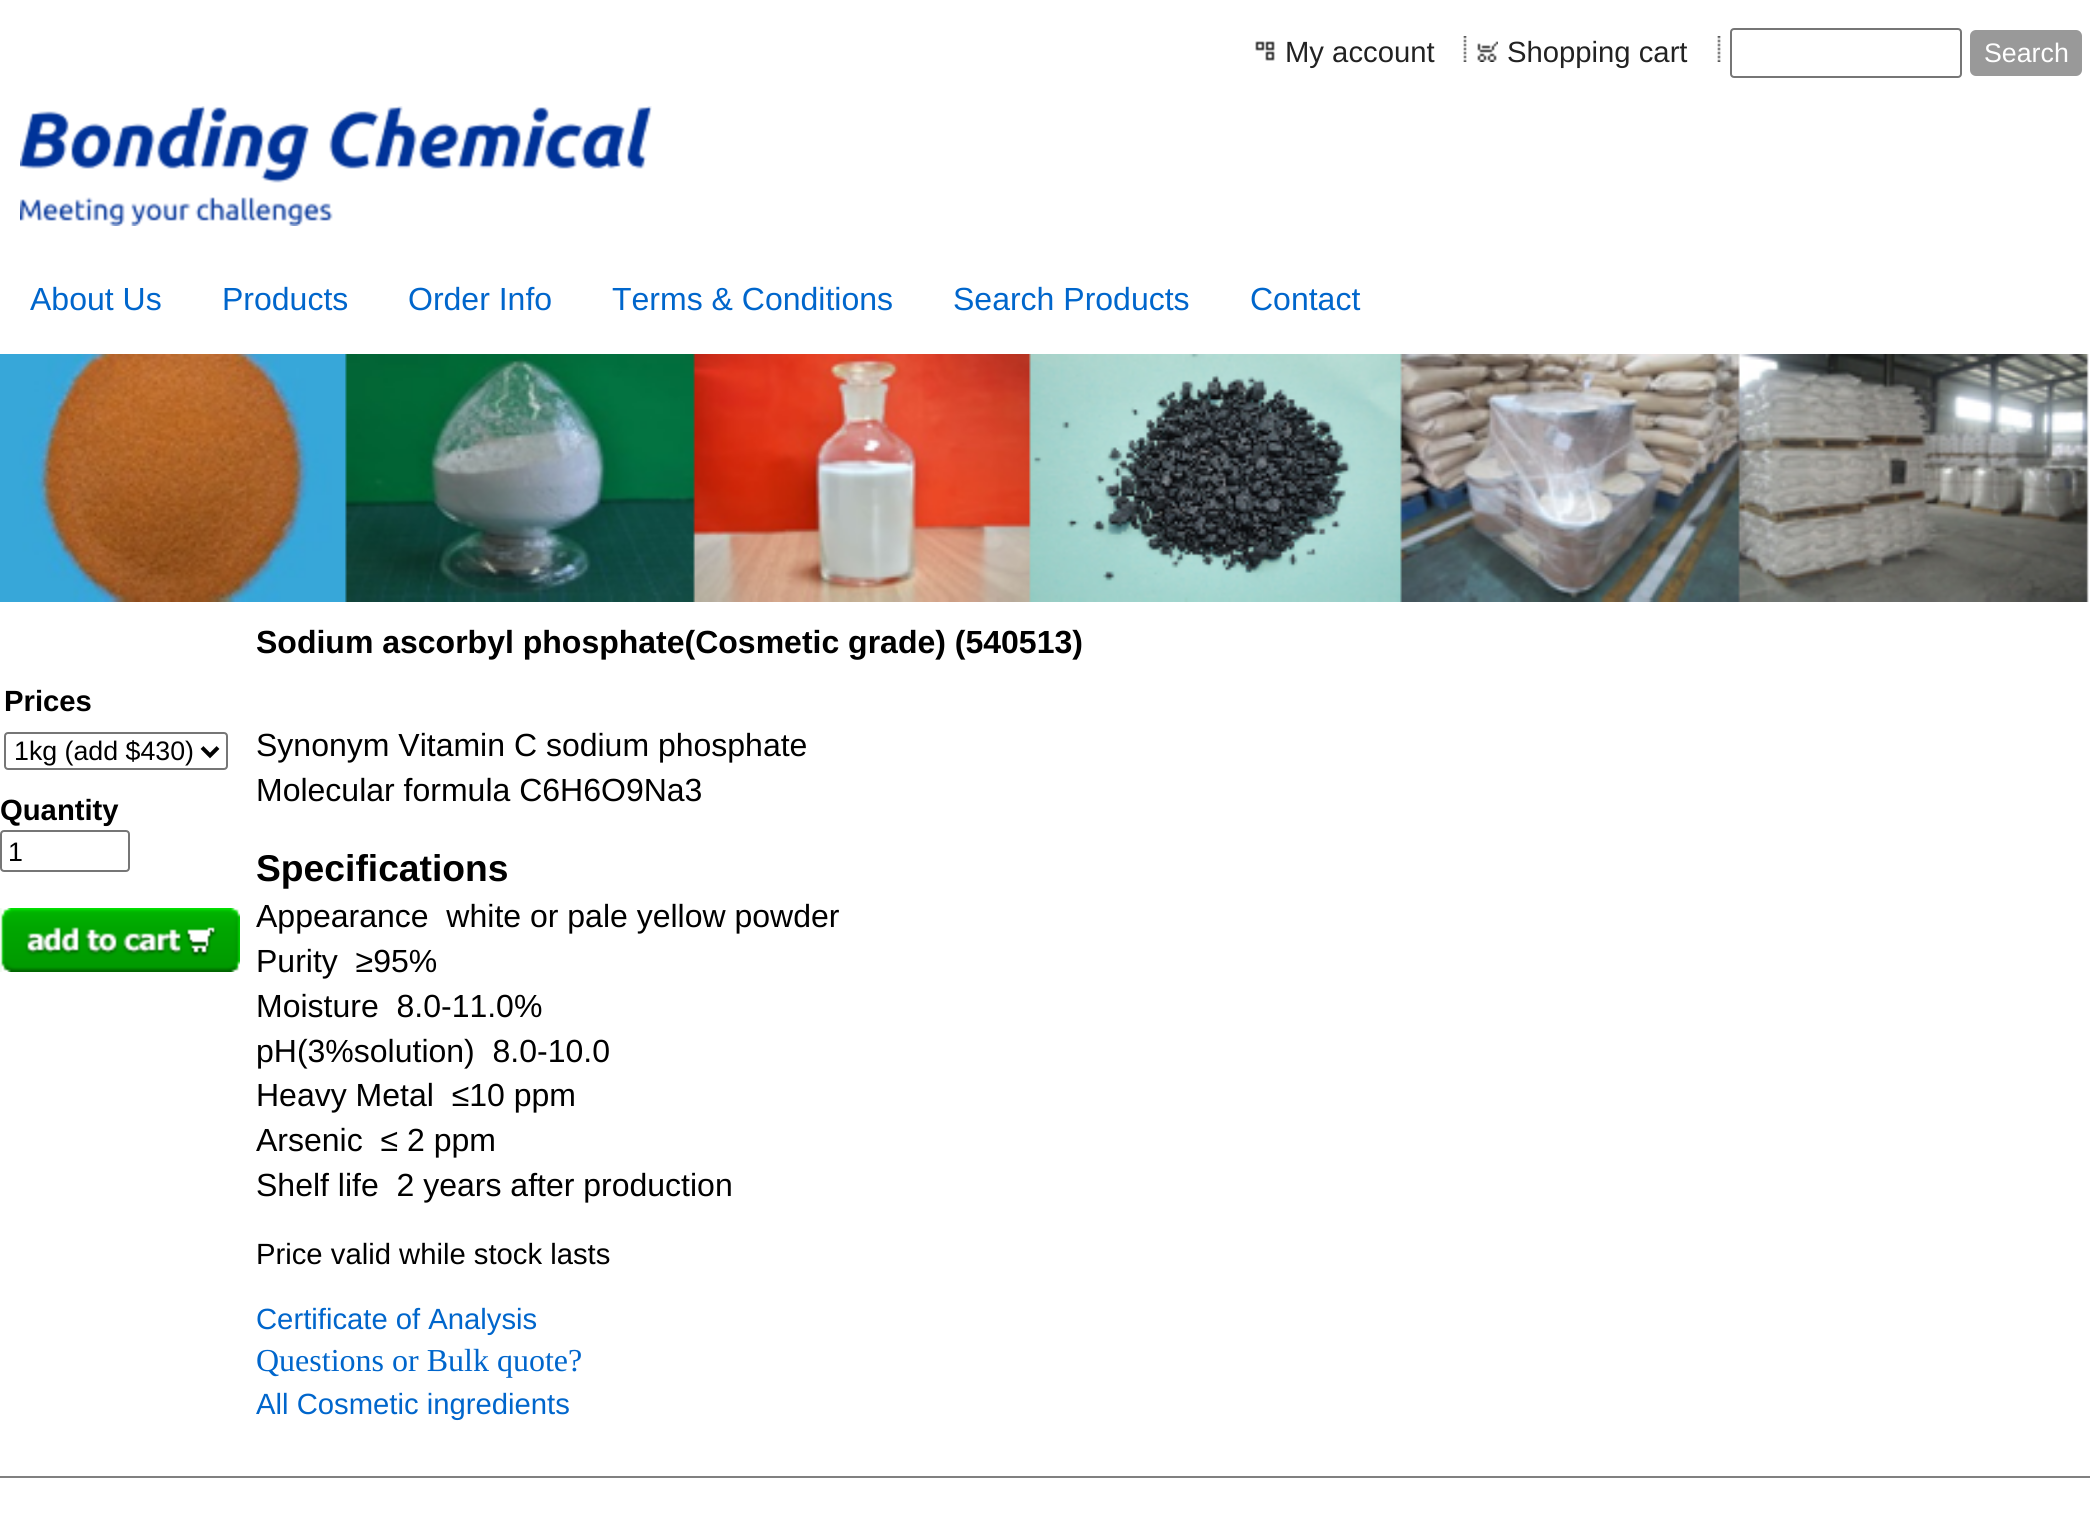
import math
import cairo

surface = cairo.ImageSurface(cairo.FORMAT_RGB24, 2090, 1513)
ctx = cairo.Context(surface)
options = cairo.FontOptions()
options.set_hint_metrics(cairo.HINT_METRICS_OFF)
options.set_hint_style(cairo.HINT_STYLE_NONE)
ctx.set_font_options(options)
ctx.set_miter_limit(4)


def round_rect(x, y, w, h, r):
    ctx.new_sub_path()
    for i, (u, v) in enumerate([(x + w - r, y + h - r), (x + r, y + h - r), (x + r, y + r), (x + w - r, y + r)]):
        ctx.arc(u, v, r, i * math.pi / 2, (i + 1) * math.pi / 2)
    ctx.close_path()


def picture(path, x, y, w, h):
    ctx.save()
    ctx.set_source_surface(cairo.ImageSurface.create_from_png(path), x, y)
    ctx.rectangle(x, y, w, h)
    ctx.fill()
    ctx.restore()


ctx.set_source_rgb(1, 1, 1)
ctx.paint()
picture("img1.png", 1255, 41, 20, 20)
ctx.select_font_face("Liberation Sans")
ctx.set_font_size(29.25)
ctx.set_source_rgb(0.133, 0.133, 0.133)
ctx.move_to(1285, 62)
ctx.show_text("My account")
picture("img2.png", 1463, 36, 4, 26)
picture("img3.png", 1477, 41, 21, 21)
ctx.move_to(1507, 62)
ctx.show_text("Shopping cart")
picture("img2.png", 1717, 36, 4, 26)
round_rect(1731, 29, 230, 48, 3)
ctx.set_source_rgb(0.463, 0.463, 0.463)
ctx.stroke()
ctx.set_source_rgb(0.6, 0.6, 0.6)
round_rect(1971, 31, 110, 44, 5)
ctx.fill_preserve()
ctx.stroke()
ctx.set_font_size(26.75)
ctx.set_source_rgb(1, 1, 1)
ctx.move_to(1984, 62)
ctx.show_text("Search")
picture("img4.png", 20, 106, 632, 120)
ctx.set_font_size(32)
ctx.set_source_rgb(0, 0.4, 0.8)
ctx.move_to(30, 310)
ctx.show_text("About Us")
ctx.move_to(222, 310)
ctx.show_text("Products")
ctx.move_to(408, 310)
ctx.show_text("Order Info")
ctx.move_to(612, 310)
ctx.show_text("Terms & Conditions")
ctx.move_to(953, 310)
ctx.show_text("Search Products")
ctx.move_to(1250, 310)
ctx.show_text("Contact")
picture("img5.png", 0, 354, 2089, 248)
picture("img6.png", 43, 357, 2045, 243)
ctx.select_font_face("Liberation Sans", cairo.FONT_SLANT_NORMAL, cairo.FONT_WEIGHT_BOLD)
ctx.set_font_size(29.25)
ctx.set_source_rgb(0, 0, 0)
ctx.move_to(4, 711)
ctx.show_text("Prices")
round_rect(5, 733, 222, 36, 3)
ctx.set_source_rgb(0.463, 0.463, 0.463)
ctx.stroke()
ctx.new_path()
ctx.move_to(202, 747.5)
ctx.line_to(210, 755.5)
ctx.line_to(218, 747.5)
ctx.set_source_rgb(0, 0, 0)
ctx.set_line_width(4)
ctx.stroke()
ctx.select_font_face("Liberation Sans")
ctx.set_font_size(26.75)
ctx.move_to(14, 760)
ctx.show_text("1kg (add $430)")
ctx.select_font_face("Liberation Sans", cairo.FONT_SLANT_NORMAL, cairo.FONT_WEIGHT_BOLD)
ctx.set_font_size(29.25)
ctx.move_to(0, 820)
ctx.show_text("Quantity")
round_rect(1, 831, 128, 40, 3)
ctx.set_source_rgb(0.463, 0.463, 0.463)
ctx.set_line_width(2)
ctx.stroke()
ctx.select_font_face("Liberation Sans")
ctx.set_font_size(26.75)
ctx.set_source_rgb(0, 0, 0)
ctx.move_to(8, 861)
ctx.show_text("1")
picture("img7.png", 0, 908, 240, 64)
ctx.select_font_face("Liberation Sans", cairo.FONT_SLANT_NORMAL, cairo.FONT_WEIGHT_BOLD)
ctx.set_font_size(32)
ctx.move_to(256, 653)
ctx.show_text("Sodium ascorbyl phosphate(Cosmetic grade) (540513)")
ctx.select_font_face("Liberation Sans")
ctx.move_to(256, 756)
ctx.show_text("Synonym Vitamin C sodium phosphate")
ctx.move_to(256, 801)
ctx.show_text("Molecular formula C6H6O9Na3")
ctx.select_font_face("Liberation Sans", cairo.FONT_SLANT_NORMAL, cairo.FONT_WEIGHT_BOLD)
ctx.set_font_size(37.25)
ctx.move_to(256, 881)
ctx.show_text("Specifications")
ctx.select_font_face("Liberation Sans")
ctx.set_font_size(32)
ctx.move_to(256, 927)
ctx.show_text("Appearance  white or pale yellow powder")
ctx.move_to(256, 972)
ctx.show_text("Purity  ≥95%")
ctx.move_to(256, 1017)
ctx.show_text("Moisture  8.0-11.0%")
ctx.move_to(256, 1062)
ctx.show_text("pH(3%solution)  8.0-10.0")
ctx.move_to(256, 1106)
ctx.show_text("Heavy Metal  ≤10 ppm")
ctx.move_to(256, 1151)
ctx.show_text("Arsenic  ≤ 2 ppm")
ctx.move_to(256, 1196)
ctx.show_text("Shelf life  2 years after production")
ctx.set_font_size(29.25)
ctx.move_to(256, 1264)
ctx.show_text("Price valid while stock lasts")
ctx.set_source_rgb(0, 0.4, 0.8)
ctx.move_to(256, 1329)
ctx.show_text("Certificate of Analysis")
ctx.select_font_face("Liberation Serif")
ctx.set_font_size(32)
ctx.move_to(256, 1371)
ctx.show_text("Questions or Bulk quote?")
ctx.select_font_face("Liberation Sans")
ctx.set_font_size(29.25)
ctx.move_to(256, 1414)
ctx.show_text("All Cosmetic ingredients")
ctx.set_source_rgb(0.502, 0.502, 0.502)
ctx.rectangle(0, 1476, 2090, 2)
ctx.fill()
surface.write_to_png("page.png")
